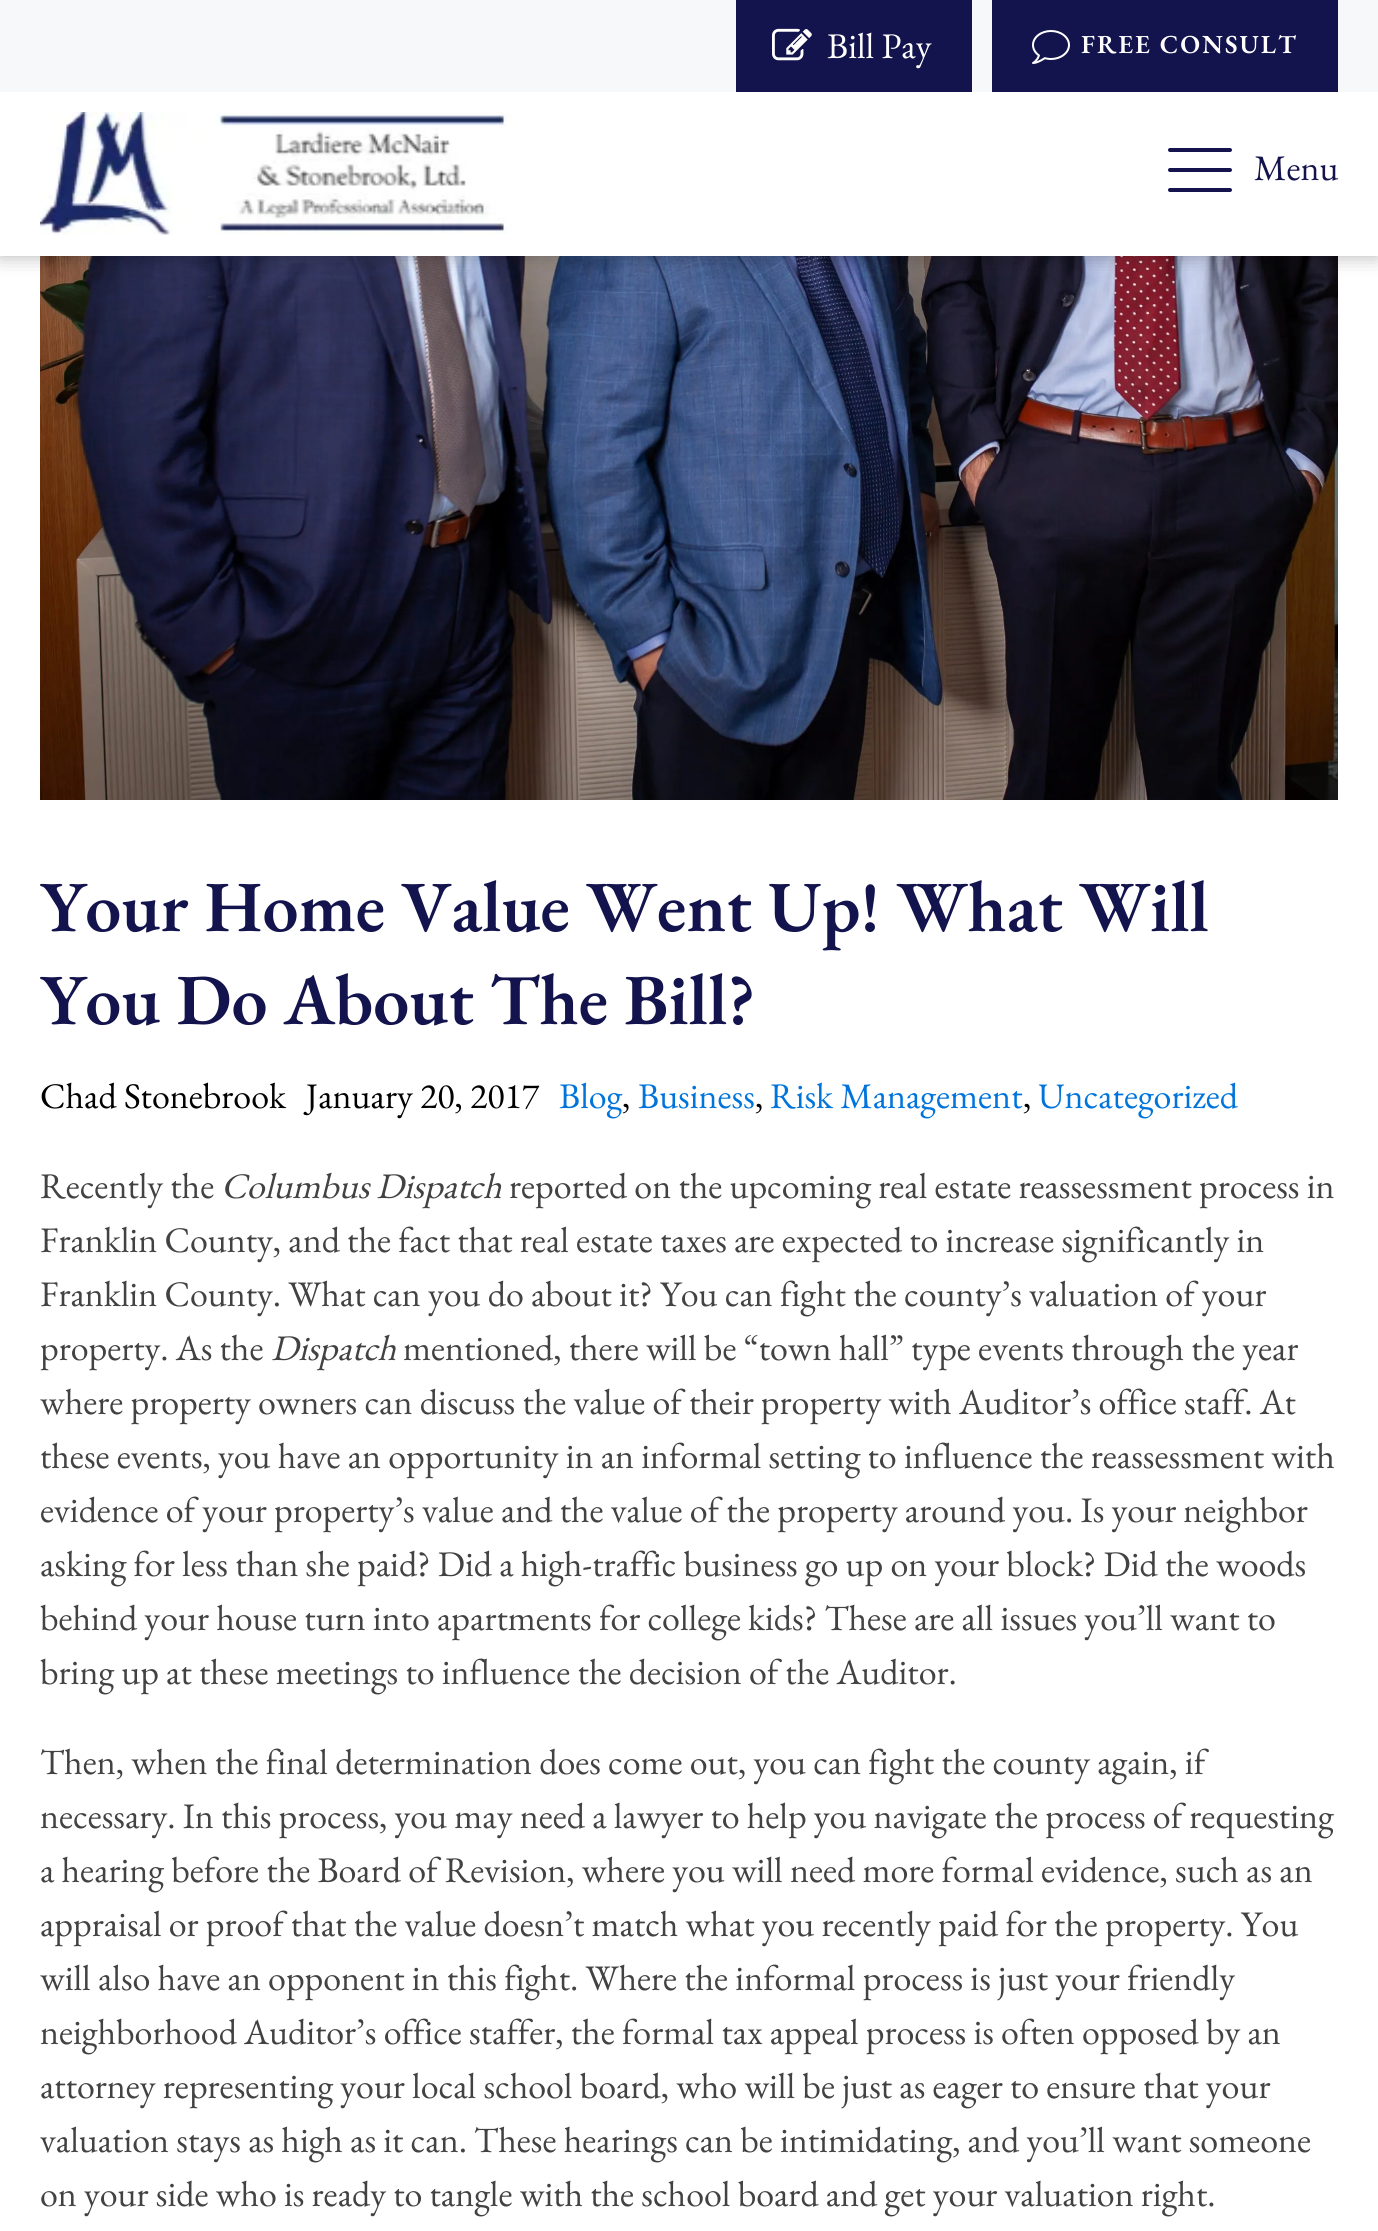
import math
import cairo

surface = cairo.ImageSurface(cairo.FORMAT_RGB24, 1378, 2231)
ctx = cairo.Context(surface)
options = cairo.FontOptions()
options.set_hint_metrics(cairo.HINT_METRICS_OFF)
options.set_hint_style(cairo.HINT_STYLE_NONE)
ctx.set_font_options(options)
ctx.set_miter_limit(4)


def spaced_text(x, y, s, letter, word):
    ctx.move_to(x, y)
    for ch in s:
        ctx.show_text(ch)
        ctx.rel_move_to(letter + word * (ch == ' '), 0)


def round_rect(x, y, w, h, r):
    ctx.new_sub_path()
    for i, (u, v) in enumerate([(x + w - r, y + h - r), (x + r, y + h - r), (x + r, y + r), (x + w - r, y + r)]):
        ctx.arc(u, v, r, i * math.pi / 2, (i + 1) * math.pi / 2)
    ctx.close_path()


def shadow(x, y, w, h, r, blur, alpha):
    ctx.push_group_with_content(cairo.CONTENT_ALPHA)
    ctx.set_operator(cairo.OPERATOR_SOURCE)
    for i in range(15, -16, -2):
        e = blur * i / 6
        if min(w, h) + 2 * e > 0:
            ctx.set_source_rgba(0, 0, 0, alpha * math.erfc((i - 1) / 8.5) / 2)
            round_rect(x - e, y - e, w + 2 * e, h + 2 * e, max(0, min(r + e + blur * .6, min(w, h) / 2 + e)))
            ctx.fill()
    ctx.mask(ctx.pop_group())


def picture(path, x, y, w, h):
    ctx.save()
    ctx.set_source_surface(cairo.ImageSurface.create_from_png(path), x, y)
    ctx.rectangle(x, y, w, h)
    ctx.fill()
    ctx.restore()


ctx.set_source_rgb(1, 1, 1)
ctx.paint()
picture("img5.png", 40, 256, 1298, 544)
ctx.set_source_rgb(0, 0, 0)
shadow(0, 0, 1378, 256, 0, 10, 0.3)
ctx.set_source_rgb(1, 1, 1)
ctx.rectangle(0, 92, 1378, 164)
ctx.fill()
ctx.set_source_rgb(0.965, 0.969, 0.973)
ctx.rectangle(0, 0, 1378, 92)
ctx.fill()
ctx.set_source_rgb(0.078, 0.075, 0.302)
ctx.rectangle(736, 0, 236, 92)
ctx.fill()
picture("img1.png", 772, 28, 40, 33)
ctx.select_font_face("EB Garamond")
ctx.set_font_size(36)
ctx.set_source_rgb(1, 1, 1)
ctx.move_to(827, 58)
ctx.show_text("Bill Pay")
ctx.set_source_rgb(0.078, 0.075, 0.302)
ctx.rectangle(992, 0, 346, 92)
ctx.fill()
picture("img2.png", 1032, 30, 38, 34)
ctx.select_font_face("EB Garamond SemiBold")
ctx.set_font_size(26)
ctx.set_source_rgb(1, 1, 1)
spaced_text(1081, 53, "FREE CONSULT", 2, 0)
picture("img3.png", 40, 112, 473, 123)
picture("img4.png", 1168, 148, 64, 44)
ctx.select_font_face("EB Garamond")
ctx.set_font_size(36)
ctx.set_source_rgb(0.078, 0.075, 0.302)
ctx.move_to(1254, 180)
ctx.show_text("Menu")
ctx.select_font_face("EB Garamond SemiBold")
ctx.set_font_size(72)
ctx.move_to(40, 931)
ctx.show_text("Your Home Value Went Up! What Will")
ctx.move_to(40, 1024)
ctx.show_text("You Do About The Bill?")
ctx.select_font_face("EB Garamond")
ctx.set_font_size(36)
ctx.set_source_rgb(0, 0, 0)
ctx.move_to(40, 1108)
ctx.show_text("Chad Stonebrook")
ctx.move_to(306, 1108)
ctx.show_text("January 20, 2017")
ctx.set_source_rgb(0, 0.455, 0.859)
ctx.move_to(559, 1108)
ctx.show_text("Blog")
ctx.set_source_rgb(0, 0, 0)
ctx.move_to(622, 1108)
ctx.show_text(",")
ctx.set_source_rgb(0, 0.455, 0.859)
ctx.move_to(638, 1108)
ctx.show_text("Business")
ctx.set_source_rgb(0, 0, 0)
ctx.move_to(755, 1108)
ctx.show_text(",")
ctx.set_source_rgb(0, 0.455, 0.859)
ctx.move_to(770, 1108)
ctx.show_text("Risk Management")
ctx.set_source_rgb(0, 0, 0)
ctx.move_to(1023, 1108)
ctx.show_text(",")
ctx.set_source_rgb(0, 0.455, 0.859)
ctx.move_to(1038, 1108)
ctx.show_text("Uncategorized")
ctx.set_source_rgb(0.259, 0.259, 0.259)
ctx.move_to(40, 1198)
ctx.show_text("Recently the")
ctx.select_font_face("EB Garamond", cairo.FONT_SLANT_ITALIC)
ctx.move_to(221, 1198)
ctx.show_text("Columbus Dispatch")
ctx.select_font_face("EB Garamond")
ctx.move_to(509, 1198)
ctx.show_text("reported on the upcoming real estate reassessment process in")
ctx.move_to(40, 1252)
ctx.show_text("Franklin County, and the fact that real estate taxes are expected to increase significantly in")
ctx.move_to(40, 1306)
ctx.show_text("Franklin County. What can you do about it? You can fight the county’s valuation of your")
ctx.move_to(40, 1360)
ctx.show_text("property. As the")
ctx.select_font_face("EB Garamond", cairo.FONT_SLANT_ITALIC)
ctx.move_to(271, 1360)
ctx.show_text("Dispatch")
ctx.select_font_face("EB Garamond")
ctx.move_to(403, 1360)
ctx.show_text("mentioned, there will be “town hall” type events through the year")
ctx.move_to(40, 1414)
ctx.show_text("where property owners can discuss the value of their property with Auditor’s office staff. At")
ctx.move_to(40, 1468)
ctx.show_text("these events, you have an opportunity in an informal setting to influence the reassessment with")
ctx.move_to(40, 1522)
ctx.show_text("evidence of your property’s value and the value of the property around you. Is your neighbor")
ctx.move_to(40, 1576)
ctx.show_text("asking for less than she paid? Did a high-traffic business go up on your block? Did the woods")
ctx.move_to(40, 1630)
ctx.show_text("behind your house turn into apartments for college kids? These are all issues you’ll want to")
ctx.move_to(40, 1684)
ctx.show_text("bring up at these meetings to influence the decision of the Auditor.")
ctx.move_to(40, 1774)
ctx.show_text("Then, when the final determination does come out, you can fight the county again, if")
ctx.move_to(40, 1828)
ctx.show_text("necessary. In this process, you may need a lawyer to help you navigate the process of requesting")
ctx.move_to(40, 1882)
ctx.show_text("a hearing before the Board of Revision, where you will need more formal evidence, such as an")
ctx.move_to(40, 1936)
ctx.show_text("appraisal or proof that the value doesn’t match what you recently paid for the property. You")
ctx.move_to(40, 1990)
ctx.show_text("will also have an opponent in this fight. Where the informal process is just your friendly")
ctx.move_to(40, 2044)
ctx.show_text("neighborhood Auditor’s office staffer, the formal tax appeal process is often opposed by an")
ctx.move_to(40, 2098)
ctx.show_text("attorney representing your local school board, who will be just as eager to ensure that your")
ctx.move_to(40, 2152)
ctx.show_text("valuation stays as high as it can. These hearings can be intimidating, and you’ll want someone")
ctx.move_to(40, 2206)
ctx.show_text("on your side who is ready to tangle with the school board and get your valuation right.")
surface.write_to_png("page.png")
